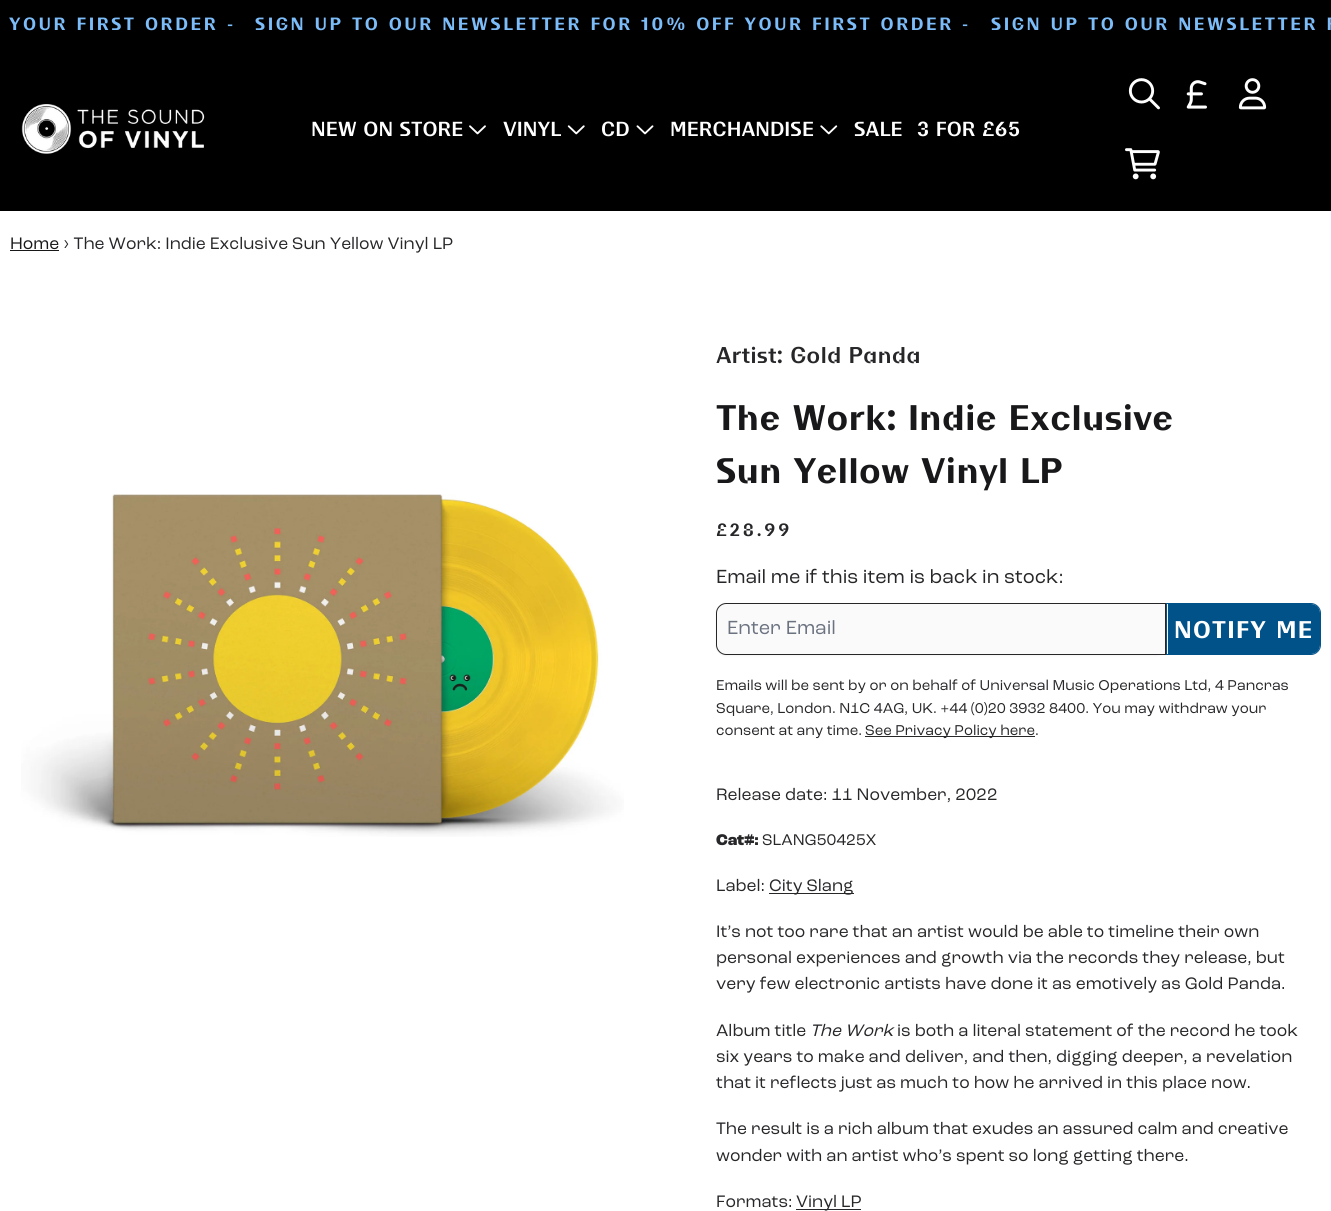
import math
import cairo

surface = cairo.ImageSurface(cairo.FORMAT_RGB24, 1331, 1211)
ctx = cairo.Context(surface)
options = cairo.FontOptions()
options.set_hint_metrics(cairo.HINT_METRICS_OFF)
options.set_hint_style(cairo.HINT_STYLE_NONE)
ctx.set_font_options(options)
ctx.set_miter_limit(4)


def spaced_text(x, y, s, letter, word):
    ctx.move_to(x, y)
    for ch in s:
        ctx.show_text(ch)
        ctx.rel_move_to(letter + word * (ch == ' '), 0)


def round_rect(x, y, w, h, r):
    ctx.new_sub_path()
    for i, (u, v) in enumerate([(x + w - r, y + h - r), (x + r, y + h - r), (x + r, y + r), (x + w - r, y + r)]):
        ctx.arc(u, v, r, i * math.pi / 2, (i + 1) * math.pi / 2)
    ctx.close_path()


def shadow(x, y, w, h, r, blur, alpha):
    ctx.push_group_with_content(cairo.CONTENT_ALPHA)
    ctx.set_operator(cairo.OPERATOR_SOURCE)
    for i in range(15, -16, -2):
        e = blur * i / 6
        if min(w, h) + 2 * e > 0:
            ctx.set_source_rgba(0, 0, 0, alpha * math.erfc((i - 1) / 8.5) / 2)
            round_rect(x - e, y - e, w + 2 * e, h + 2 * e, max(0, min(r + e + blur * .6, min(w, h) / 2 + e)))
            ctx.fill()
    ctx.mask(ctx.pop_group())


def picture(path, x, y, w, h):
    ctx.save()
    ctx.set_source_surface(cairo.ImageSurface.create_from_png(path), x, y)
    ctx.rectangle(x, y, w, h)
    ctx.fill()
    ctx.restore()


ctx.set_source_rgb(1, 1, 1)
ctx.paint()
ctx.set_source_rgb(0, 0, 0)
ctx.rectangle(0, 0, 1331, 211)
ctx.fill()
ctx.select_font_face("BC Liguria", cairo.FONT_SLANT_NORMAL, cairo.FONT_WEIGHT_BOLD)
ctx.set_font_size(17.5)
ctx.set_source_rgb(0.486, 0.737, 0.973)
spaced_text(9, 30, "YOUR FIRST ORDER", 2.5, 0)
ctx.select_font_face("BC Liguria")
spaced_text(227, 30, "-", 2.5, 0)
ctx.select_font_face("BC Liguria", cairo.FONT_SLANT_NORMAL, cairo.FONT_WEIGHT_BOLD)
spaced_text(255, 30, "SIGN UP TO OUR NEWSLETTER FOR 10% OFF YOUR FIRST ORDER", 2.5, 0)
ctx.select_font_face("BC Liguria")
spaced_text(962, 30, "-", 2.5, 0)
ctx.select_font_face("BC Liguria", cairo.FONT_SLANT_NORMAL, cairo.FONT_WEIGHT_BOLD)
spaced_text(991, 30, "SIGN UP TO OUR NEWSLETTER F", 2.5, 0)
picture("img1.png", 21, 104, 184, 50)
ctx.select_font_face("BC Liguria")
ctx.set_font_size(20)
ctx.set_source_rgb(1, 1, 1)
ctx.move_to(311, 136)
ctx.show_text("NEW ON STORE")
picture("img2.png", 469, 125, 17, 10)
ctx.move_to(503, 136)
ctx.show_text("VINYL")
picture("img3.png", 567, 125, 18, 10)
ctx.move_to(601, 136)
ctx.show_text("CD")
picture("img4.png", 636, 125, 18, 10)
ctx.move_to(670, 136)
ctx.show_text("MERCHANDISE")
picture("img5.png", 820, 125, 18, 10)
ctx.move_to(854, 136)
ctx.show_text("SALE")
ctx.move_to(917, 136)
ctx.show_text("3 FOR £65")
picture("img6.png", 1128, 78, 32, 32)
picture("img7.png", 1186, 80, 21, 29)
picture("img8.png", 1238, 78, 29, 32)
picture("img9.png", 1125, 148, 35, 32)
ctx.select_font_face("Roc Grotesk")
ctx.set_font_size(17.5)
ctx.set_source_rgb(0.094, 0.094, 0.106)
ctx.move_to(10, 249)
ctx.show_text("Home")
ctx.rectangle(10, 250, 49, 1)
ctx.fill()
ctx.set_source_rgb(0.153, 0.153, 0.165)
ctx.move_to(63, 249)
ctx.show_text("› The Work: Indie Exclusive Sun Yellow Vinyl LP")
picture("img10.png", 21, 494, 603, 343)
ctx.select_font_face("BC Liguria")
ctx.set_font_size(22.5)
ctx.move_to(716, 363)
ctx.show_text("Artist: Gold Panda")
ctx.select_font_face("BC Liguria", cairo.FONT_SLANT_NORMAL, cairo.FONT_WEIGHT_BOLD)
ctx.set_font_size(35)
ctx.set_source_rgb(0.094, 0.094, 0.106)
ctx.move_to(716, 430)
ctx.show_text("The Work: Indie Exclusive")
ctx.move_to(716, 483)
ctx.show_text("Sun Yellow Vinyl LP")
ctx.select_font_face("BC Liguria")
ctx.set_font_size(17.5)
ctx.set_source_rgb(0.153, 0.153, 0.165)
spaced_text(716, 536, "£28.99", 2.5, 0)
ctx.select_font_face("Roc Grotesk")
ctx.set_font_size(20)
ctx.move_to(716, 583)
ctx.show_text("Email me if this item is back in stock:")
ctx.set_source_rgb(0, 0, 0)
shadow(716, 604, 450, 52, 10, 1, 0.05)
ctx.set_source_rgb(0.98, 0.98, 0.98)
ctx.new_path()
ctx.move_to(726, 603.5)
ctx.line_to(1165.5, 603.5)
ctx.line_to(1165.5, 654.5)
ctx.line_to(726, 654.5)
ctx.curve_to(721, 654.5, 716.5, 650, 716.5, 645)
ctx.line_to(716.5, 613)
ctx.curve_to(716.5, 608, 721, 603.5, 726, 603.5)
ctx.close_path()
ctx.fill_preserve()
ctx.set_source_rgb(0.153, 0.153, 0.165)
ctx.set_line_width(1)
ctx.stroke()
ctx.set_source_rgb(0.42, 0.447, 0.502)
ctx.move_to(727, 634)
ctx.show_text("Enter Email")
ctx.new_path()
ctx.move_to(1166.5, 603.5)
ctx.line_to(1311, 603.5)
ctx.curve_to(1316, 603.5, 1320.5, 608, 1320.5, 613)
ctx.line_to(1320.5, 645)
ctx.curve_to(1320.5, 650, 1316, 654.5, 1311, 654.5)
ctx.line_to(1166.5, 654.5)
ctx.close_path()
ctx.set_source_rgb(0.004, 0.322, 0.537)
ctx.stroke()
ctx.new_path()
ctx.move_to(1168, 604)
ctx.line_to(1311, 604)
ctx.curve_to(1316, 604, 1320, 608, 1320, 613)
ctx.line_to(1320, 645)
ctx.curve_to(1320, 650, 1316, 654, 1311, 654)
ctx.line_to(1168, 654)
ctx.close_path()
ctx.fill()
ctx.select_font_face("BC Liguria", cairo.FONT_SLANT_NORMAL, cairo.FONT_WEIGHT_BOLD)
ctx.set_font_size(23.75)
ctx.set_source_rgb(1, 1, 1)
spaced_text(1174, 638, "NOTIFY ME", 1.25, 0)
ctx.select_font_face("Roc Grotesk")
ctx.set_font_size(15)
ctx.set_source_rgb(0.153, 0.153, 0.165)
ctx.move_to(716, 690)
ctx.show_text("Emails will be sent by or on behalf of Universal Music Operations Ltd, 4 Pancras")
ctx.move_to(716, 713)
ctx.show_text("Square, London. N1C 4AG, UK. +44 (0)20 3932 8400. You may withdraw your")
ctx.move_to(716, 735)
ctx.show_text("consent at any time.")
ctx.rectangle(865, 736, 170, 1)
ctx.fill()
ctx.move_to(865, 735)
ctx.show_text("See Privacy Policy here.")
ctx.set_font_size(17.5)
ctx.move_to(716, 800)
ctx.show_text("Release date: 11 November, 2022")
ctx.select_font_face("Roc Grotesk ExtraBold")
ctx.set_font_size(16.25)
ctx.move_to(716, 845)
ctx.show_text("Cat#:")
ctx.select_font_face("Roc Grotesk")
ctx.move_to(762, 845)
ctx.show_text("SLANG50425X")
ctx.set_font_size(17.5)
ctx.move_to(716, 891)
ctx.show_text("Label:")
ctx.rectangle(769, 893, 85, 1)
ctx.fill()
ctx.move_to(769, 891)
ctx.show_text("City Slang")
ctx.move_to(716, 937)
ctx.show_text("It’s not too rare that an artist would be able to timeline their own")
ctx.move_to(716, 963)
ctx.show_text("personal experiences and growth via the records they release, but")
ctx.move_to(716, 989)
ctx.show_text("very few electronic artists have done it as emotively as Gold Panda.")
ctx.move_to(716, 1036)
ctx.show_text("Album title")
ctx.select_font_face("Roc Grotesk", cairo.FONT_SLANT_ITALIC)
ctx.move_to(810, 1036)
ctx.show_text("The Work")
ctx.select_font_face("Roc Grotesk")
ctx.move_to(897, 1036)
ctx.show_text("is both a literal statement of the record he took")
ctx.move_to(716, 1062)
ctx.show_text("six years to make and deliver, and then, digging deeper, a revelation")
ctx.move_to(716, 1088)
ctx.show_text("that it reflects just as much to how he arrived in this place now.")
ctx.move_to(716, 1134)
ctx.show_text("The result is a rich album that exudes an assured calm and creative")
ctx.move_to(716, 1161)
ctx.show_text("wonder with an artist who’s spent so long getting there.")
ctx.move_to(716, 1207)
ctx.show_text("Formats:")
ctx.rectangle(796, 1209, 65, 1)
ctx.fill()
ctx.move_to(796, 1207)
ctx.show_text("Vinyl LP")
surface.write_to_png("page.png")
